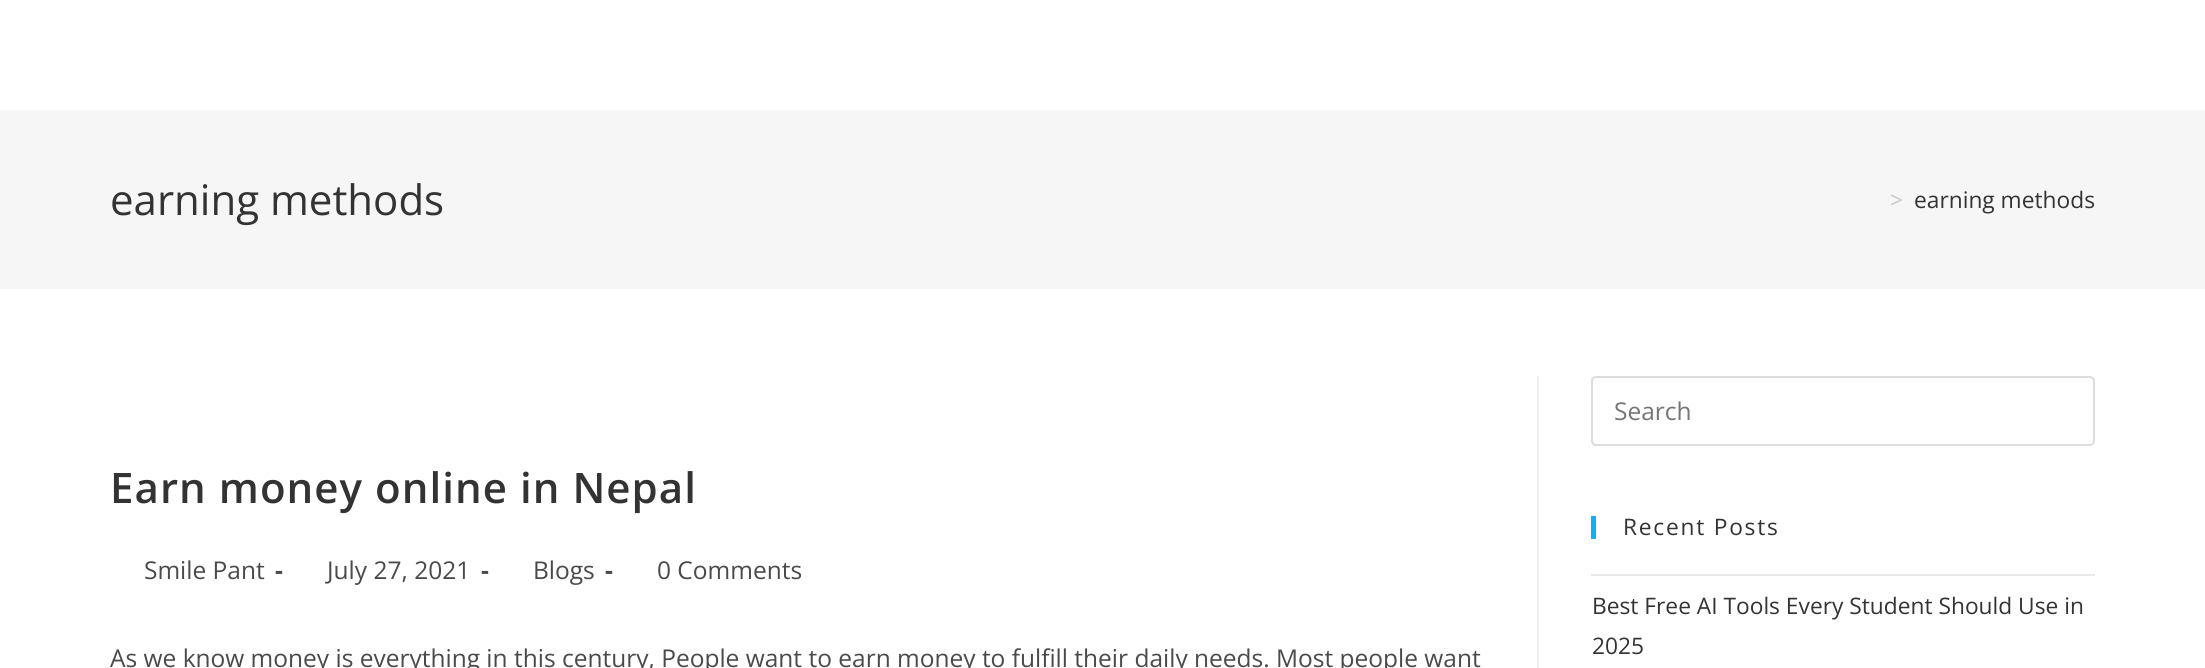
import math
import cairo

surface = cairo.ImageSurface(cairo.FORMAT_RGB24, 2205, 668)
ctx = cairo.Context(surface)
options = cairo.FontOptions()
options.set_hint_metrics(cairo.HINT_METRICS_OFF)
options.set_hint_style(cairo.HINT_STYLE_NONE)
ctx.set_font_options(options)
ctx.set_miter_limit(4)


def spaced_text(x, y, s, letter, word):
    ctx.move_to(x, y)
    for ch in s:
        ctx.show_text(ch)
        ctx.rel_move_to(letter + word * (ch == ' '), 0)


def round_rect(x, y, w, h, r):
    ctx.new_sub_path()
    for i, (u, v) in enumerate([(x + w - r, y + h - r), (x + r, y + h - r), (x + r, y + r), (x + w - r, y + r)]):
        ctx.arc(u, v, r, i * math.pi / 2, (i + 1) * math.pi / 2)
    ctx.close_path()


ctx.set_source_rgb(1, 1, 1)
ctx.paint()
ctx.set_source_rgb(0.961, 0.961, 0.961)
ctx.rectangle(0, 110, 2205, 179)
ctx.fill()
ctx.select_font_face("Open Sans")
ctx.set_font_size(42)
ctx.set_source_rgb(0.2, 0.2, 0.2)
ctx.move_to(110, 215)
ctx.show_text("earning methods")
ctx.set_font_size(22.75)
ctx.set_source_rgb(0.776, 0.776, 0.776)
ctx.move_to(1890, 208)
ctx.show_text(">")
ctx.set_source_rgb(0.2, 0.2, 0.2)
ctx.move_to(1914, 208)
ctx.show_text("earning methods")
ctx.set_source_rgb(0.945, 0.945, 0.945)
ctx.rectangle(1537, 376, 2, 292)
ctx.fill()
ctx.select_font_face("Open Sans SemiBold")
ctx.set_font_size(42)
ctx.set_source_rgb(0.2, 0.2, 0.2)
spaced_text(110, 503, "Earn money online in Nepal", 1.05, 0)
ctx.select_font_face("Open Sans")
ctx.set_font_size(24.5)
ctx.set_source_rgb(0.29, 0.29, 0.29)
ctx.move_to(144, 579)
ctx.show_text("Smile Pant")
ctx.select_font_face("Open Sans", cairo.FONT_SLANT_NORMAL, cairo.FONT_WEIGHT_BOLD)
ctx.move_to(275, 579)
ctx.show_text("-")
ctx.select_font_face("Open Sans")
ctx.move_to(327, 579)
ctx.show_text("July 27, 2021")
ctx.select_font_face("Open Sans", cairo.FONT_SLANT_NORMAL, cairo.FONT_WEIGHT_BOLD)
ctx.move_to(481, 579)
ctx.show_text("-")
ctx.select_font_face("Open Sans")
ctx.move_to(533, 579)
ctx.show_text("Blogs")
ctx.select_font_face("Open Sans", cairo.FONT_SLANT_NORMAL, cairo.FONT_WEIGHT_BOLD)
ctx.move_to(605, 579)
ctx.show_text("-")
ctx.select_font_face("Open Sans")
ctx.move_to(657, 579)
ctx.show_text("0 Comments")
ctx.move_to(110, 667)
ctx.show_text("As we know money is everything in this century, People want to earn money to fulfill their daily needs. Most people want")
round_rect(1592, 377, 502, 68, 4)
ctx.set_source_rgb(0.867, 0.867, 0.867)
ctx.stroke()
ctx.set_source_rgb(0.459, 0.459, 0.459)
ctx.move_to(1614, 420)
ctx.show_text("Search")
ctx.set_source_rgb(0.075, 0.686, 0.941)
ctx.rectangle(1591, 516, 5, 23)
ctx.fill()
ctx.set_font_size(22.75)
ctx.set_source_rgb(0.2, 0.2, 0.2)
spaced_text(1623, 535, "Recent Posts", 1.75, 0)
ctx.set_source_rgb(0.914, 0.914, 0.914)
ctx.rectangle(1591, 574, 504, 2)
ctx.fill()
ctx.set_source_rgb(0.2, 0.2, 0.2)
ctx.move_to(1592, 614)
ctx.show_text("Best Free AI Tools Every Student Should Use in")
ctx.move_to(1592, 654)
ctx.show_text("2025")
surface.write_to_png("page.png")
